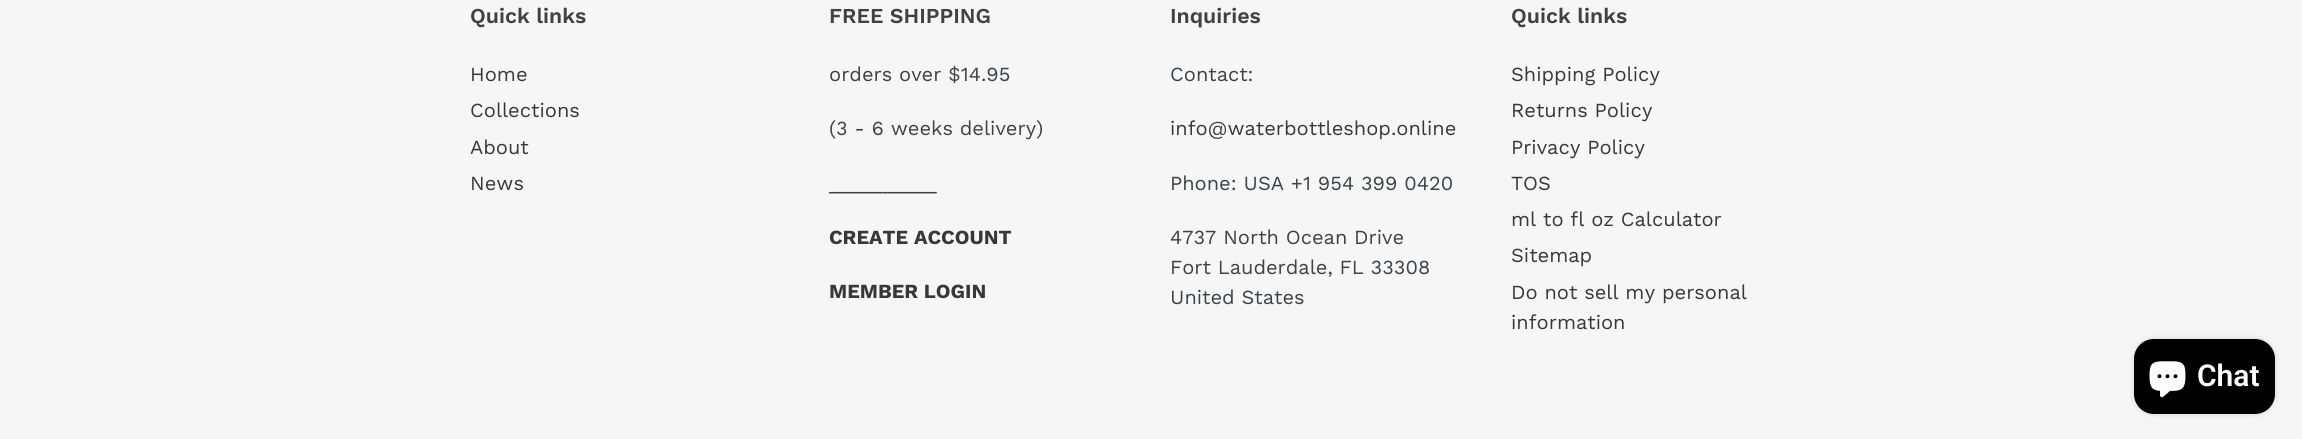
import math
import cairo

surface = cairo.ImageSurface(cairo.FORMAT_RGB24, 2302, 439)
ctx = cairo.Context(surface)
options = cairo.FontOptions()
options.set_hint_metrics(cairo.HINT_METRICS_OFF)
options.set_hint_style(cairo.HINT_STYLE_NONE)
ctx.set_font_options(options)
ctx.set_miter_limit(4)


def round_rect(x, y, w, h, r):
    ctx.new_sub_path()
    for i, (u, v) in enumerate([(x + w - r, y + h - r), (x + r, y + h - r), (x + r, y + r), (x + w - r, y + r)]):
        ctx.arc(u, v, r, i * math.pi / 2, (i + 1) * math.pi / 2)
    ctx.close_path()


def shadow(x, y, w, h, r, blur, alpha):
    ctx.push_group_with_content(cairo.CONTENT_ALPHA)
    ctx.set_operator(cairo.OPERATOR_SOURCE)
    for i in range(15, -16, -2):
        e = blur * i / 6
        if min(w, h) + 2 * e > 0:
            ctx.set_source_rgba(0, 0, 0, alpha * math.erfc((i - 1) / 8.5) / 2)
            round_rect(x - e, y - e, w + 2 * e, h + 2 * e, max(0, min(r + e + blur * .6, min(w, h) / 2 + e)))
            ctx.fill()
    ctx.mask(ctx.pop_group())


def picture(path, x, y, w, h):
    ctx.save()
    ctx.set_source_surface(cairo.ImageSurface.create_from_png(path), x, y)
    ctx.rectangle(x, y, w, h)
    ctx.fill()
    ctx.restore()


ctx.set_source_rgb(0.961, 0.961, 0.961)
ctx.paint()
ctx.select_font_face("Work Sans SemiBold")
ctx.set_font_size(21.25)
ctx.set_source_rgb(0.239, 0.259, 0.275)
ctx.move_to(470, 23)
ctx.show_text("Quick links")
ctx.select_font_face("Work Sans")
ctx.set_font_size(20)
ctx.set_source_rgb(0.216, 0.22, 0.224)
ctx.move_to(470, 81)
ctx.show_text("Home")
ctx.move_to(470, 117)
ctx.show_text("Collections")
ctx.move_to(470, 154)
ctx.show_text("About")
ctx.move_to(470, 190)
ctx.show_text("News")
ctx.select_font_face("Work Sans SemiBold")
ctx.set_font_size(21.25)
ctx.set_source_rgb(0.239, 0.259, 0.275)
ctx.move_to(829, 23)
ctx.show_text("FREE SHIPPING")
ctx.select_font_face("Work Sans")
ctx.set_font_size(20)
ctx.move_to(829, 81)
ctx.show_text("orders over $14.95")
ctx.move_to(829, 135)
ctx.show_text("(3 - 6 weeks delivery)")
ctx.move_to(829, 190)
ctx.show_text("__________")
ctx.select_font_face("Work Sans", cairo.FONT_SLANT_NORMAL, cairo.FONT_WEIGHT_BOLD)
ctx.set_source_rgb(0.216, 0.22, 0.224)
ctx.move_to(829, 244)
ctx.show_text("CREATE ACCOUNT")
ctx.move_to(829, 298)
ctx.show_text("MEMBER LOGIN")
ctx.select_font_face("Work Sans SemiBold")
ctx.set_font_size(21.25)
ctx.set_source_rgb(0.239, 0.259, 0.275)
ctx.move_to(1170, 23)
ctx.show_text("Inquiries")
ctx.select_font_face("Work Sans")
ctx.set_font_size(20)
ctx.move_to(1170, 81)
ctx.show_text("Contact:")
ctx.set_source_rgb(0.216, 0.22, 0.224)
ctx.move_to(1170, 135)
ctx.show_text("info@waterbottleshop.online")
ctx.set_source_rgb(0.239, 0.259, 0.275)
ctx.move_to(1170, 190)
ctx.show_text("Phone: USA +1 954 399 0420")
ctx.move_to(1170, 244)
ctx.show_text("4737 North Ocean Drive")
ctx.move_to(1170, 274)
ctx.show_text("Fort Lauderdale, FL 33308")
ctx.move_to(1170, 304)
ctx.show_text("United States")
ctx.select_font_face("Work Sans SemiBold")
ctx.set_font_size(21.25)
ctx.move_to(1511, 23)
ctx.show_text("Quick links")
ctx.select_font_face("Work Sans")
ctx.set_font_size(20)
ctx.set_source_rgb(0.216, 0.22, 0.224)
ctx.move_to(1511, 81)
ctx.show_text("Shipping Policy")
ctx.move_to(1511, 117)
ctx.show_text("Returns Policy")
ctx.move_to(1511, 154)
ctx.show_text("Privacy Policy")
ctx.move_to(1511, 190)
ctx.show_text("TOS")
ctx.move_to(1511, 226)
ctx.show_text("ml to fl oz Calculator")
ctx.move_to(1511, 262)
ctx.show_text("Sitemap")
ctx.move_to(1511, 299)
ctx.show_text("Do not sell my personal")
ctx.move_to(1511, 329)
ctx.show_text("information")
ctx.set_source_rgb(0, 0, 0)
shadow(2134, 339, 141, 75, 20, 3, 0.15)
ctx.set_source_rgb(0, 0, 0)
round_rect(2134, 339, 141, 75, 20)
ctx.fill()
picture("img1.png", 2149, 361, 37, 37)
ctx.select_font_face("Roboto SemiBold")
ctx.set_font_size(30)
ctx.set_source_rgb(1, 1, 1)
ctx.move_to(2197, 386)
ctx.show_text("Chat")
surface.write_to_png("page.png")
